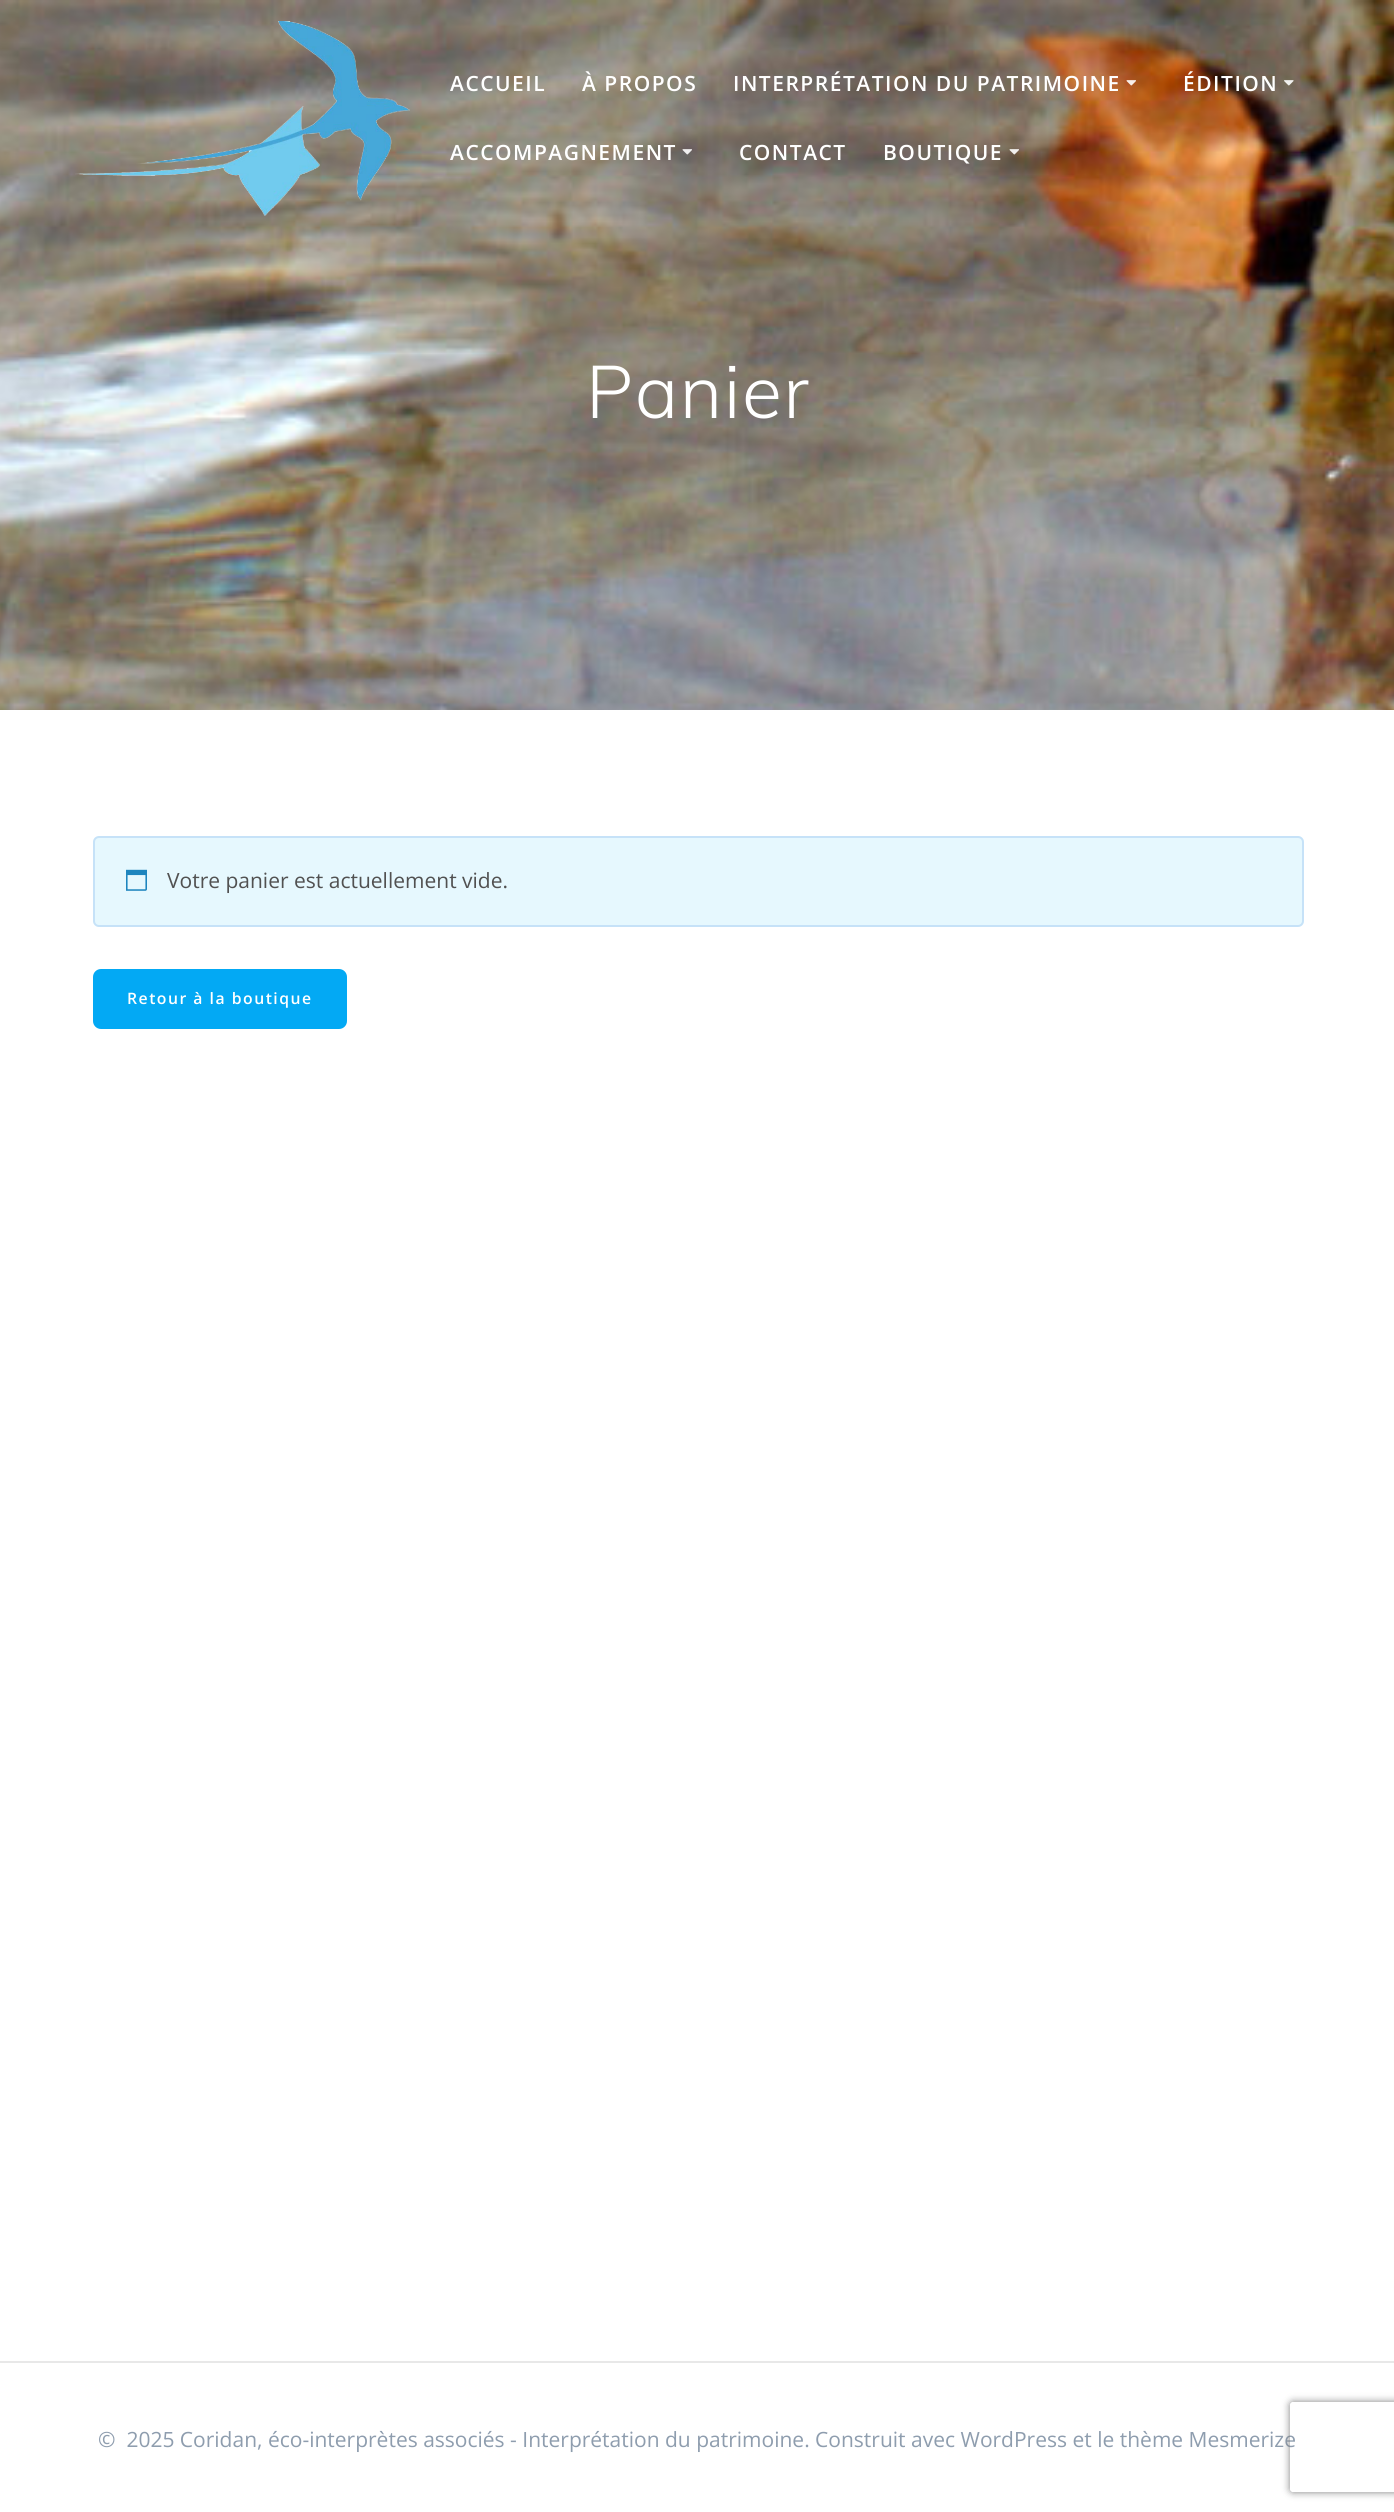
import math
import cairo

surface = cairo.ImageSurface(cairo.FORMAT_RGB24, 1394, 2512)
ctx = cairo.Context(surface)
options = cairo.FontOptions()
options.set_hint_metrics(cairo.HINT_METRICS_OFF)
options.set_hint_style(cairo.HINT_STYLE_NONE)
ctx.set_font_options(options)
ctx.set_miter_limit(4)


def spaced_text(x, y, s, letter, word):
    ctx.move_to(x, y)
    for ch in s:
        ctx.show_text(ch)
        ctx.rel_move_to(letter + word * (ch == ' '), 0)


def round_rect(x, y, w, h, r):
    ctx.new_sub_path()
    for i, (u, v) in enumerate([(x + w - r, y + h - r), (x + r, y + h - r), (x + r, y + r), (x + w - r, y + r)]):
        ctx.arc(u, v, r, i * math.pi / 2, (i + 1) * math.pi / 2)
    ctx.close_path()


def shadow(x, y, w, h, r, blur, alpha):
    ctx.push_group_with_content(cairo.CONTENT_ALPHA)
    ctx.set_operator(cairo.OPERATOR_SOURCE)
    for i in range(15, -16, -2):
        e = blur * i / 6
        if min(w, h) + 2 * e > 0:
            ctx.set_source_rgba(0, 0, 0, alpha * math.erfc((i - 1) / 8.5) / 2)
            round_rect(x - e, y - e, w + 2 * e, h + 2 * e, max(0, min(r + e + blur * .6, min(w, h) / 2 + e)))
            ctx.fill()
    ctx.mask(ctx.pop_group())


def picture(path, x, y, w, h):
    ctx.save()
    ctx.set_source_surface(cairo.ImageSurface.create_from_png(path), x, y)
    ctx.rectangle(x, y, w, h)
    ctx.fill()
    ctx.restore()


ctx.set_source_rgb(1, 1, 1)
ctx.paint()
picture("img6.png", 0, 0, 1394, 710)
picture("img1.png", 75, 21, 335, 195)
ctx.select_font_face("Open Sans SemiBold")
ctx.set_font_size(21)
ctx.set_source_rgb(1, 1, 1)
spaced_text(450, 91, "ACCUEIL", 1.5, 0)
spaced_text(582, 91, "À PROPOS", 1.5, 0)
spaced_text(733, 91, "INTERPRÉTATION DU PATRIMOINE", 1.5, 0)
picture("img2.png", 1126, 80, 10, 6)
spaced_text(1183, 91, "ÉDITION", 1.5, 0)
picture("img3.png", 1284, 80, 10, 6)
spaced_text(450, 160, "ACCOMPAGNEMENT", 1.5, 0)
picture("img4.png", 682, 149, 10, 6)
spaced_text(739, 160, "CONTACT", 1.5, 0)
spaced_text(883, 160, "BOUTIQUE", 1.5, 0)
picture("img5.png", 1009, 149, 10, 6)
ctx.select_font_face("Muli Light")
ctx.set_font_size(73.5)
spaced_text(586, 418, "Panier", 1.5, 0)
ctx.set_source_rgb(0.902, 0.969, 0.996)
round_rect(93, 836, 1211, 91, 6)
ctx.fill()
round_rect(94, 837, 1209, 89, 5)
ctx.set_source_rgba(0.29, 0.565, 0.886, 0.2)
ctx.stroke()
picture("img7.png", 126, 869, 21, 22)
ctx.select_font_face("Open Sans")
ctx.set_font_size(21)
ctx.set_source_rgb(0.318, 0.318, 0.318)
ctx.move_to(167, 888)
ctx.show_text("Votre panier est actuellement vide.")
ctx.set_source_rgb(0.012, 0.663, 0.957)
round_rect(94.5, 970.5, 251, 57, 6.5)
ctx.fill_preserve()
ctx.set_line_width(3)
ctx.stroke()
ctx.select_font_face("Open Sans SemiBold")
ctx.set_font_size(15.75)
ctx.set_source_rgb(1, 1, 1)
spaced_text(127, 1004, "Retour à la boutique", 1.5, 0)
ctx.set_source_rgb(0.91, 0.91, 0.91)
ctx.rectangle(0, 2361, 1394, 2)
ctx.fill()
ctx.select_font_face("Open Sans")
ctx.set_font_size(21)
ctx.set_source_rgb(0.557, 0.616, 0.682)
ctx.move_to(98, 2447)
ctx.show_text("©  2025 Coridan, éco-interprètes associés - Interprétation du patrimoine. Construit avec WordPress et le thème Mesmerize")
ctx.save()
ctx.set_fill_rule(cairo.FILL_RULE_EVEN_ODD)
ctx.new_path()
ctx.move_to(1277, 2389)
ctx.line_to(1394, 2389)
ctx.line_to(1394, 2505)
ctx.line_to(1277, 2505)
ctx.close_path()
ctx.move_to(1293, 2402)
ctx.line_to(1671, 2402)
ctx.curve_to(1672.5, 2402, 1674, 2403.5, 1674, 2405)
ctx.line_to(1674, 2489)
ctx.curve_to(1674, 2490.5, 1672.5, 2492, 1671, 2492)
ctx.line_to(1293, 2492)
ctx.curve_to(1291.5, 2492, 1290, 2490.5, 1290, 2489)
ctx.line_to(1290, 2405)
ctx.curve_to(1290, 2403.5, 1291.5, 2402, 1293, 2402)
ctx.close_path()
ctx.clip()
ctx.set_source_rgb(0.502, 0.502, 0.502)
shadow(1290, 2402, 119, 90, 3, 4, 1)
ctx.restore()
surface.write_to_png("page.png")
